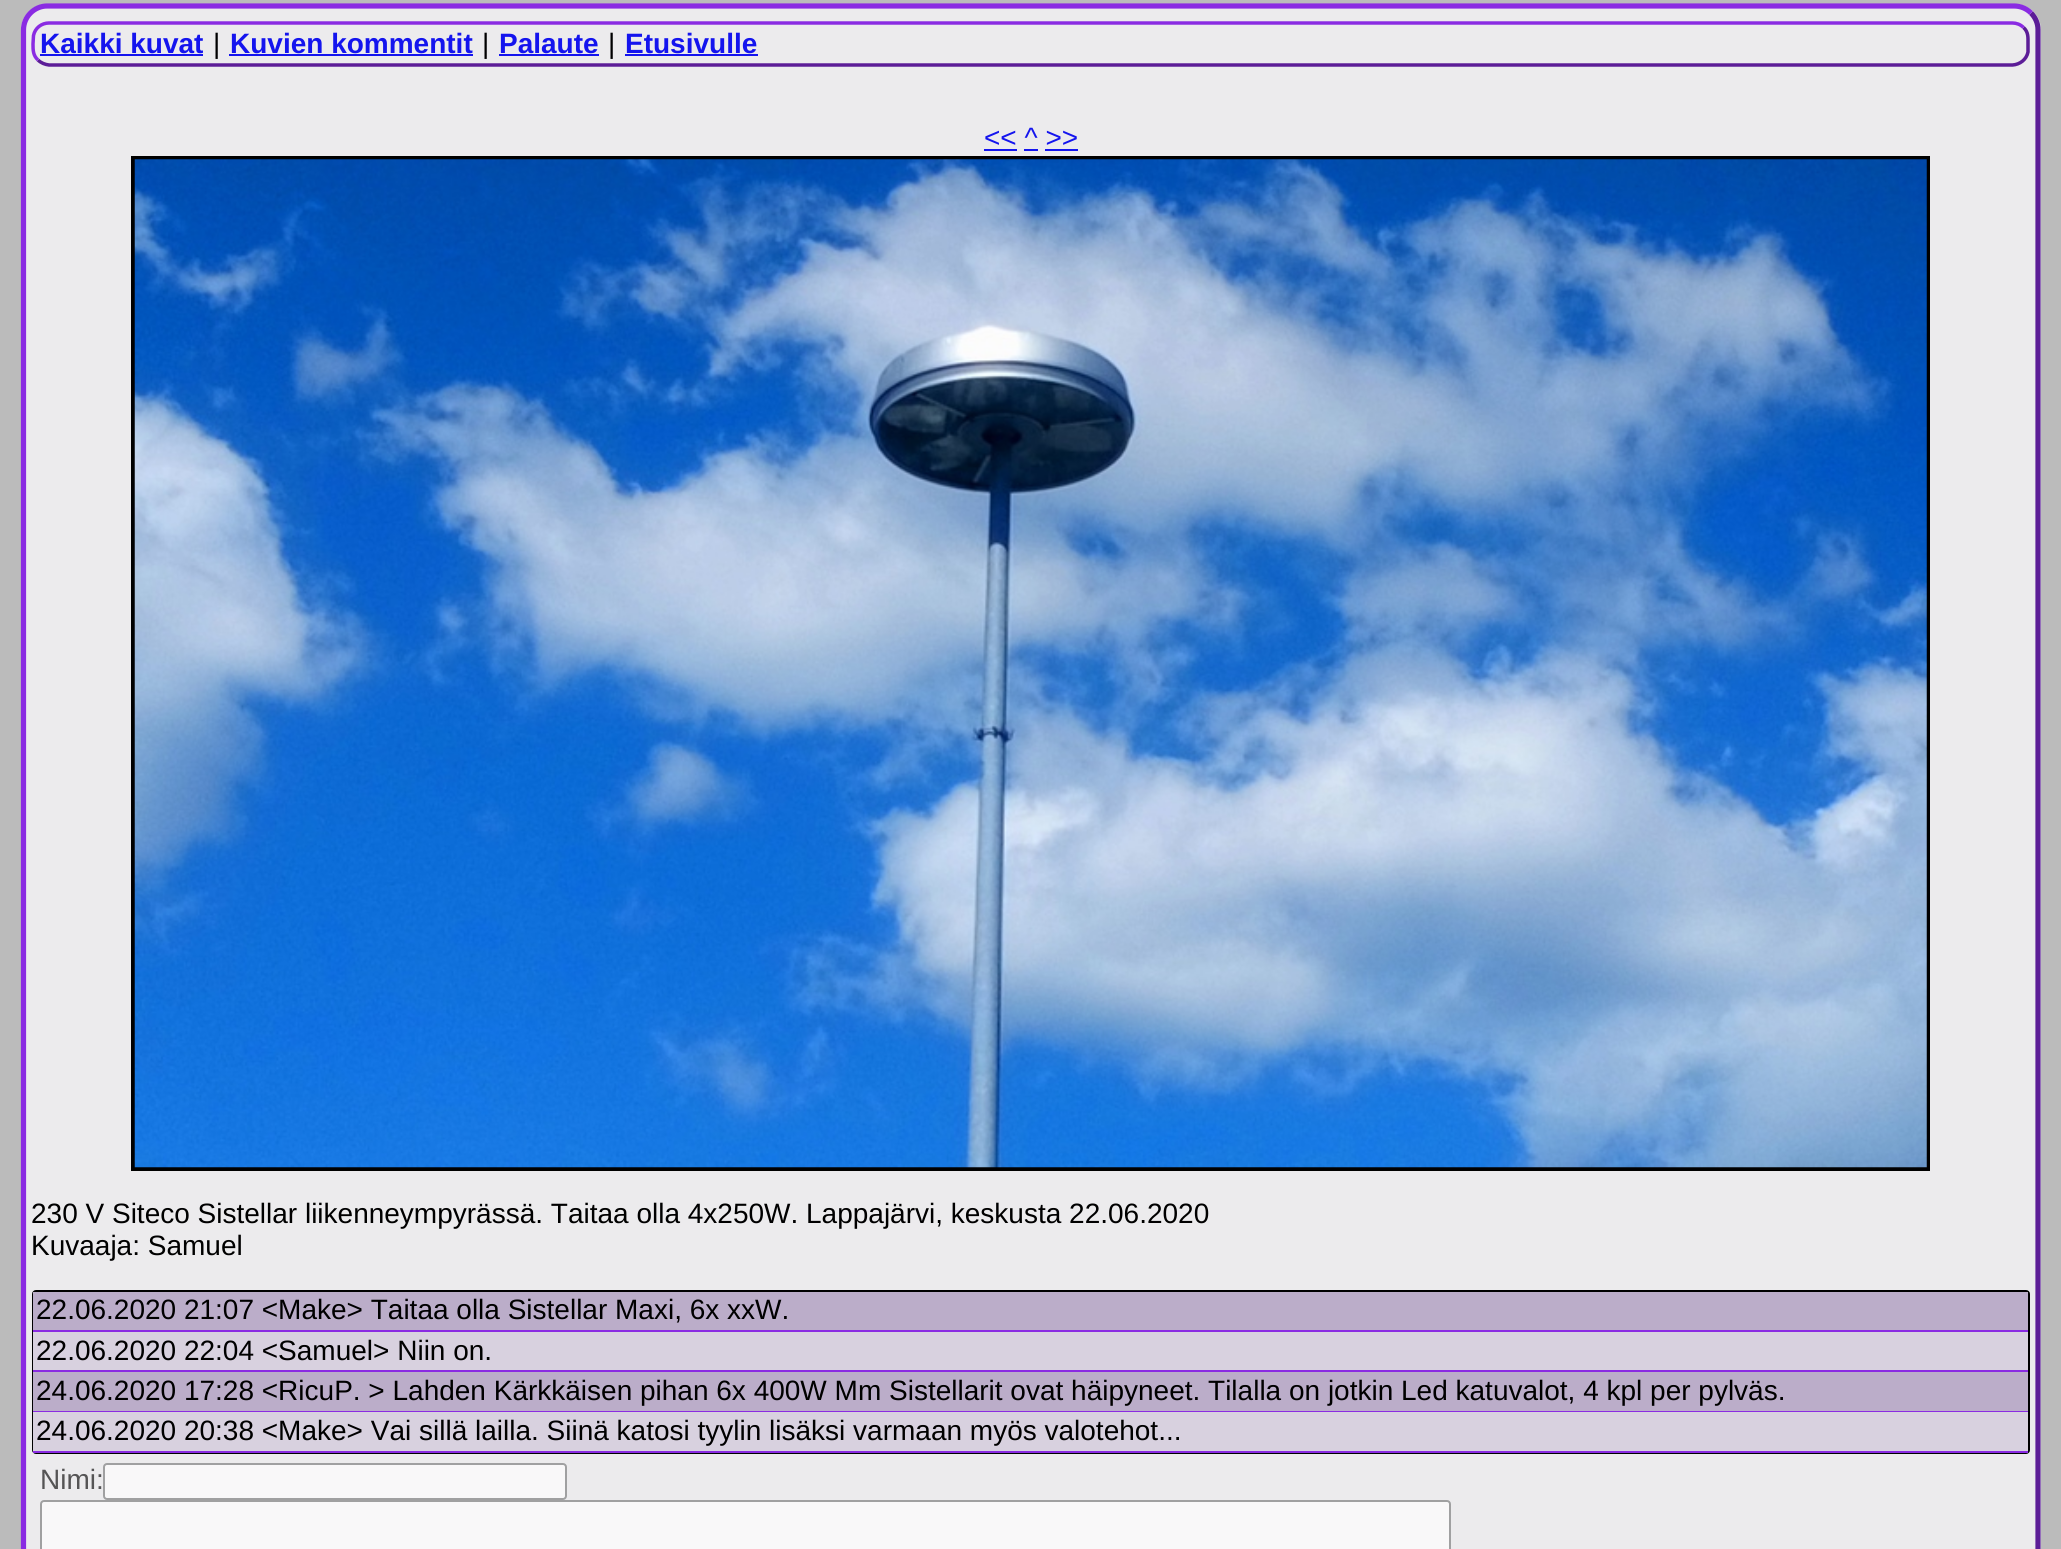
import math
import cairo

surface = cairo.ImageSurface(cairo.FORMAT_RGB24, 2061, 1549)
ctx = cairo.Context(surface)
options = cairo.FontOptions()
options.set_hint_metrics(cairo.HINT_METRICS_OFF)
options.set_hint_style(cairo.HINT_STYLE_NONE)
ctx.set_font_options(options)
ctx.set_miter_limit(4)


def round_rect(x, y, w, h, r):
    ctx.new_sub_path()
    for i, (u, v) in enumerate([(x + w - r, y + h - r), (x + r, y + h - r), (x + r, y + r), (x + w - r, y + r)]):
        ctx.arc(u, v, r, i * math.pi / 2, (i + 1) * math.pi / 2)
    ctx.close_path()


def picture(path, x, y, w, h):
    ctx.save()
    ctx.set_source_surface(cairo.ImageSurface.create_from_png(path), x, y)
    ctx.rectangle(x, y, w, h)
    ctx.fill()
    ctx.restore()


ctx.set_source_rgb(0.733, 0.733, 0.733)
ctx.paint()
ctx.set_source_rgb(0.922, 0.918, 0.929)
round_rect(21, 4, 2020, 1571, 26)
ctx.fill()
ctx.new_path()
ctx.move_to(2031, 13)
ctx.curve_to(2035.5, 17.5, 2038, 23.5, 2038, 29.5)
ctx.line_to(2038, 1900.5)
ctx.curve_to(2038, 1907, 2035.5, 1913, 2031, 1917)
ctx.curve_to(2026.5, 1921.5, 2020.5, 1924, 2014, 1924)
ctx.line_to(47.5, 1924)
ctx.curve_to(41, 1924, 35, 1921.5, 30.5, 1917)
ctx.set_source_rgb(0.361, 0.114, 0.592)
ctx.set_line_width(5.2)
ctx.stroke()
ctx.new_path()
ctx.move_to(30.5, 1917)
ctx.curve_to(26, 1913, 23.5, 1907, 23.5, 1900.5)
ctx.line_to(23.5, 30)
ctx.curve_to(23.5, 23.5, 26, 17.5, 30.5, 13)
ctx.curve_to(35, 8.5, 41, 6, 47, 6)
ctx.line_to(2014, 6)
ctx.curve_to(2020.5, 6, 2026.5, 8.5, 2031, 13)
ctx.set_source_rgb(0.541, 0.169, 0.886)
ctx.stroke()
ctx.new_path()
ctx.move_to(2023.5, 27.5)
ctx.curve_to(2028.5, 32, 2028, 37.5, 2028, 43.5)
ctx.line_to(2028, 52)
ctx.curve_to(2026.5, 59.5, 2020, 64.5, 2012.5, 65)
ctx.line_to(49, 65)
ctx.curve_to(45, 64.5, 41, 63, 38, 60)
ctx.set_source_rgb(0.361, 0.114, 0.592)
ctx.set_line_width(3.5)
ctx.stroke()
ctx.new_path()
ctx.move_to(38, 60)
ctx.curve_to(33, 55.5, 33, 50, 33, 44)
ctx.line_to(33.5, 35.5)
ctx.curve_to(35, 28, 41.5, 23, 49, 23)
ctx.line_to(2012.5, 23)
ctx.curve_to(2016.5, 23, 2020.5, 24.5, 2023.5, 27.5)
ctx.set_source_rgb(0.541, 0.169, 0.886)
ctx.stroke()
ctx.select_font_face("Liberation Sans", cairo.FONT_SLANT_NORMAL, cairo.FONT_WEIGHT_BOLD)
ctx.set_font_size(28)
ctx.set_source_rgb(0.082, 0.082, 0.933)
ctx.move_to(40, 53)
ctx.show_text("Kaikki kuvat")
ctx.rectangle(40, 54, 163, 2)
ctx.fill()
ctx.select_font_face("Liberation Sans")
ctx.set_source_rgb(0, 0, 0)
ctx.move_to(213, 53)
ctx.show_text("|")
ctx.select_font_face("Liberation Sans", cairo.FONT_SLANT_NORMAL, cairo.FONT_WEIGHT_BOLD)
ctx.set_source_rgb(0.082, 0.082, 0.933)
ctx.move_to(230, 53)
ctx.show_text("Kuvien kommentit")
ctx.rectangle(229, 54, 244, 2)
ctx.fill()
ctx.select_font_face("Liberation Sans")
ctx.set_source_rgb(0, 0, 0)
ctx.move_to(482, 53)
ctx.show_text("|")
ctx.select_font_face("Liberation Sans", cairo.FONT_SLANT_NORMAL, cairo.FONT_WEIGHT_BOLD)
ctx.set_source_rgb(0.082, 0.082, 0.933)
ctx.move_to(499, 53)
ctx.show_text("Palaute")
ctx.rectangle(499, 54, 100, 2)
ctx.fill()
ctx.select_font_face("Liberation Sans")
ctx.set_source_rgb(0, 0, 0)
ctx.move_to(608, 53)
ctx.show_text("|")
ctx.select_font_face("Liberation Sans", cairo.FONT_SLANT_NORMAL, cairo.FONT_WEIGHT_BOLD)
ctx.set_source_rgb(0.082, 0.082, 0.933)
ctx.move_to(625, 53)
ctx.show_text("Etusivulle")
ctx.rectangle(625, 54, 133, 2)
ctx.fill()
ctx.select_font_face("Liberation Sans")
ctx.move_to(984, 147)
ctx.show_text("<< ^ >>")
ctx.rectangle(984, 149, 33, 2)
ctx.fill()
ctx.rectangle(1024, 149, 14, 2)
ctx.fill()
ctx.rectangle(1045, 149, 33, 2)
ctx.fill()
ctx.rectangle(133, 158, 1795, 1011)
ctx.set_source_rgb(0, 0, 0)
ctx.set_line_width(4)
ctx.stroke()
picture("img1.png", 134, 159, 1793, 1009)
ctx.move_to(31, 1223)
ctx.show_text("230 V Siteco Sistellar liikenneympyrässä. Taitaa olla 4x250W. Lappajärvi, keskusta 22.06.2020")
ctx.move_to(31, 1255)
ctx.show_text("Kuvaaja: Samuel")
round_rect(33, 1291, 1996, 162, 3)
ctx.set_line_width(2)
ctx.stroke()
ctx.set_source_rgb(0.733, 0.678, 0.788)
ctx.rectangle(33, 1292, 1995, 38)
ctx.fill()
ctx.set_source_rgb(0.541, 0.169, 0.886)
ctx.rectangle(33, 1330, 1995, 2)
ctx.fill()
ctx.set_source_rgb(0, 0, 0)
ctx.move_to(36, 1319)
ctx.show_text("22.06.2020 21:07 <Make> Taitaa olla Sistellar Maxi, 6x xxW.")
ctx.set_source_rgb(0.847, 0.82, 0.875)
ctx.rectangle(33, 1332, 1995, 38)
ctx.fill()
ctx.set_source_rgb(0.541, 0.169, 0.886)
ctx.rectangle(33, 1370, 1995, 2)
ctx.fill()
ctx.set_source_rgb(0, 0, 0)
ctx.move_to(36, 1360)
ctx.show_text("22.06.2020 22:04 <Samuel> Niin on.")
ctx.set_source_rgb(0.733, 0.678, 0.788)
ctx.rectangle(33, 1372, 1995, 39)
ctx.fill()
ctx.set_source_rgb(0.541, 0.169, 0.886)
ctx.rectangle(33, 1411, 1995, 1)
ctx.fill()
ctx.set_source_rgb(0, 0, 0)
ctx.move_to(36, 1400)
ctx.show_text("24.06.2020 17:28 <RicuP. > Lahden Kärkkäisen pihan 6x 400W Mm Sistellarit ovat häipyneet. Tilalla on jotkin Led katuvalot, 4 kpl per pylväs.")
ctx.set_source_rgb(0.847, 0.82, 0.875)
ctx.rectangle(33, 1412, 1995, 39)
ctx.fill()
ctx.set_source_rgb(0.541, 0.169, 0.886)
ctx.rectangle(33, 1451, 1995, 2)
ctx.fill()
ctx.set_source_rgb(0, 0, 0)
ctx.move_to(36, 1440)
ctx.show_text("24.06.2020 20:38 <Make> Vai sillä lailla. Siinä katosi tyylin lisäksi varmaan myös valotehot...")
ctx.set_source_rgb(0.333, 0.329, 0.333)
ctx.move_to(40, 1489)
ctx.show_text("Nimi:")
ctx.set_source_rgb(0.973, 0.969, 0.976)
round_rect(104, 1464, 462, 35, 3)
ctx.fill_preserve()
ctx.set_source_rgb(0.627, 0.627, 0.631)
ctx.stroke()
ctx.set_source_rgb(0.973, 0.969, 0.976)
round_rect(41, 1501, 1409, 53, 3)
ctx.fill_preserve()
ctx.set_source_rgb(0.627, 0.627, 0.631)
ctx.stroke()
surface.write_to_png("page.png")
